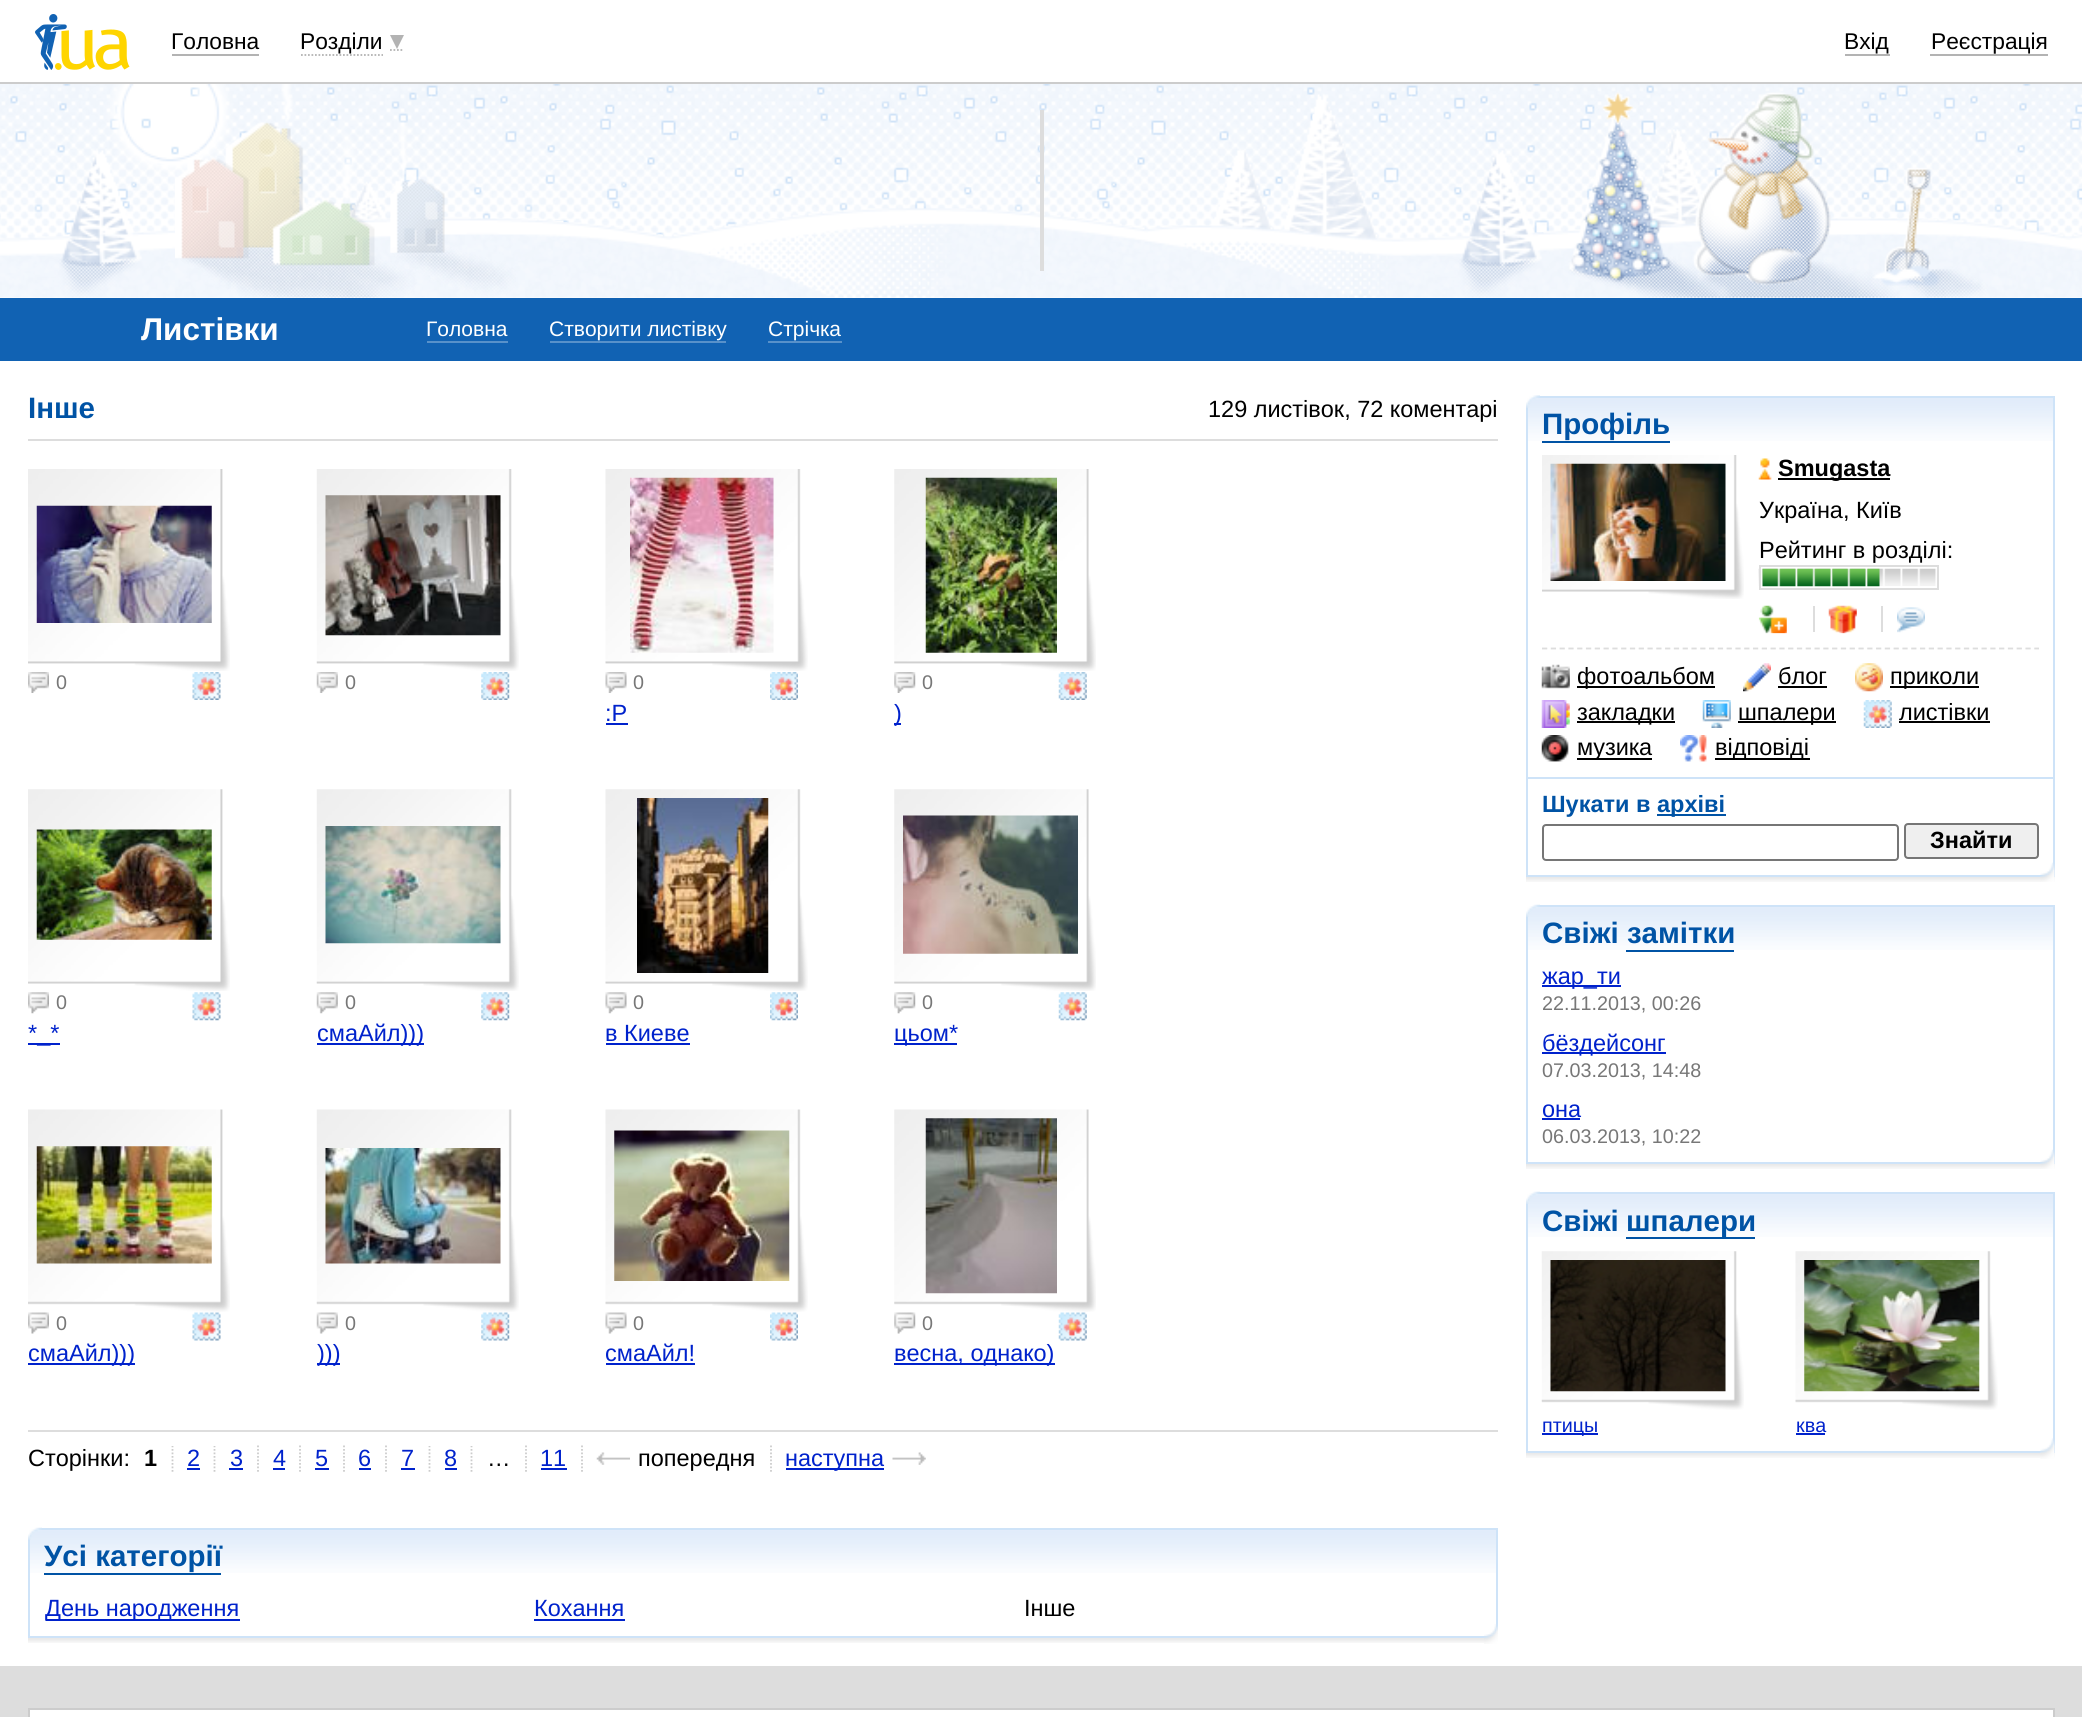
import math
import cairo

surface = cairo.ImageSurface(cairo.FORMAT_RGB24, 2082, 1717)
ctx = cairo.Context(surface)
options = cairo.FontOptions()
options.set_hint_metrics(cairo.HINT_METRICS_OFF)
options.set_hint_style(cairo.HINT_STYLE_NONE)
ctx.set_font_options(options)
ctx.set_miter_limit(4)


def round_rect(x, y, w, h, r):
    ctx.new_sub_path()
    for i, (u, v) in enumerate([(x + w - r, y + h - r), (x + r, y + h - r), (x + r, y + r), (x + w - r, y + r)]):
        ctx.arc(u, v, r, i * math.pi / 2, (i + 1) * math.pi / 2)
    ctx.close_path()


def picture(path, x, y, w, h):
    ctx.save()
    ctx.set_source_surface(cairo.ImageSurface.create_from_png(path), x, y)
    ctx.rectangle(x, y, w, h)
    ctx.fill()
    ctx.restore()


ctx.set_source_rgb(1, 1, 1)
ctx.paint()
ctx.set_source_rgb(0.8, 0.8, 0.8)
ctx.rectangle(0, 82, 2082, 2)
ctx.fill()
picture("img1.png", 35, 14, 95, 56)
ctx.select_font_face("Liberation Sans")
ctx.set_font_size(22.75)
ctx.set_source_rgb(0, 0, 0)
ctx.move_to(171, 49)
ctx.show_text("Головна")
ctx.set_source_rgb(0.702, 0.702, 0.702)
ctx.rectangle(172, 54, 87, 2)
ctx.fill()
ctx.new_path()
ctx.move_to(301, 55)
ctx.line_to(383, 55)
ctx.set_line_width(1.8)
ctx.set_dash([1.75, 1.75])
ctx.stroke()
ctx.new_path()
ctx.move_to(390, 50)
ctx.line_to(404, 50)
ctx.stroke()
ctx.set_source_rgb(0, 0, 0)
ctx.move_to(300, 49)
ctx.show_text("Розділи")
ctx.set_source_rgb(0.702, 0.702, 0.702)
ctx.new_path()
ctx.move_to(390, 35)
ctx.line_to(404, 35)
ctx.line_to(397, 49)
ctx.close_path()
ctx.fill()
ctx.set_source_rgb(0, 0, 0)
ctx.move_to(1844, 49)
ctx.show_text("Вхід")
ctx.set_source_rgb(0.702, 0.702, 0.702)
ctx.rectangle(1845, 54, 45, 2)
ctx.fill()
ctx.set_source_rgb(0, 0, 0)
ctx.move_to(1931, 49)
ctx.show_text("Реєстрація")
ctx.set_source_rgb(0.702, 0.702, 0.702)
ctx.rectangle(1930, 54, 118, 2)
ctx.fill()
picture("img2.png", 0, 84, 2082, 214)
ctx.set_source_rgb(0.867, 0.867, 0.867)
ctx.rectangle(1040, 110, 4, 161)
ctx.fill()
ctx.set_source_rgb(0.067, 0.384, 0.702)
ctx.rectangle(0, 298, 2082, 63)
ctx.fill()
ctx.select_font_face("Liberation Sans", cairo.FONT_SLANT_NORMAL, cairo.FONT_WEIGHT_BOLD)
ctx.set_font_size(31.5)
ctx.set_source_rgb(1, 1, 1)
ctx.move_to(141, 340)
ctx.show_text("Листівки")
ctx.select_font_face("Liberation Sans")
ctx.set_font_size(21)
ctx.move_to(426, 336)
ctx.show_text("Головна")
ctx.set_source_rgb(0.345, 0.569, 0.792)
ctx.rectangle(427, 341, 81, 2)
ctx.fill()
ctx.set_source_rgb(1, 1, 1)
ctx.move_to(549, 336)
ctx.show_text("Створити листівку")
ctx.set_source_rgb(0.345, 0.569, 0.792)
ctx.rectangle(550, 341, 176, 2)
ctx.fill()
ctx.set_source_rgb(1, 1, 1)
ctx.move_to(768, 336)
ctx.show_text("Стрічка")
ctx.set_source_rgb(0.345, 0.569, 0.792)
ctx.rectangle(768, 341, 74, 2)
ctx.fill()
ctx.select_font_face("Liberation Sans", cairo.FONT_SLANT_NORMAL, cairo.FONT_WEIGHT_BOLD)
ctx.set_font_size(29.5)
ctx.set_source_rgb(0, 0.325, 0.647)
ctx.move_to(28, 418)
ctx.show_text("Інше")
ctx.select_font_face("Liberation Sans")
ctx.set_font_size(23.5)
ctx.set_source_rgb(0, 0, 0)
ctx.move_to(1208, 417)
ctx.show_text("129 листівок, 72 коментарі")
ctx.set_source_rgb(0.867, 0.867, 0.867)
ctx.rectangle(28, 439, 1470, 2)
ctx.fill()
picture("img3.png", 28, 469, 202, 202)
picture("img4.png", 36, 505, 176, 118)
picture("img5.png", 28, 672, 21, 21)
ctx.set_font_size(19.75)
ctx.set_source_rgb(0.467, 0.467, 0.467)
ctx.move_to(56, 689)
ctx.show_text("0")
picture("img6.png", 192, 672, 29, 28)
picture("img7.png", 316, 469, 203, 202)
picture("img8.png", 325, 495, 176, 141)
picture("img9.png", 316, 672, 22, 21)
ctx.move_to(345, 689)
ctx.show_text("0")
picture("img10.png", 481, 672, 29, 28)
picture("img11.png", 605, 469, 203, 202)
picture("img12.png", 630, 477, 144, 176)
picture("img13.png", 605, 672, 22, 21)
ctx.move_to(633, 689)
ctx.show_text("0")
picture("img14.png", 770, 672, 28, 28)
ctx.set_font_size(23.5)
ctx.set_source_rgb(0, 0.133, 0.8)
ctx.move_to(605, 721)
ctx.show_text(":Р")
ctx.rectangle(606, 723, 22, 2)
ctx.fill()
picture("img15.png", 894, 469, 202, 202)
picture("img16.png", 925, 477, 132, 176)
picture("img17.png", 894, 672, 22, 21)
ctx.set_font_size(19.75)
ctx.set_source_rgb(0.467, 0.467, 0.467)
ctx.move_to(922, 689)
ctx.show_text("0")
picture("img18.png", 1058, 672, 29, 28)
ctx.set_source_rgb(0, 0.133, 0.8)
ctx.rectangle(894, 723, 7, 2)
ctx.fill()
ctx.set_font_size(23.5)
ctx.move_to(894, 721)
ctx.show_text(")")
picture("img19.png", 28, 789, 202, 202)
picture("img20.png", 36, 829, 176, 111)
picture("img21.png", 28, 992, 21, 22)
ctx.set_font_size(19.75)
ctx.set_source_rgb(0.467, 0.467, 0.467)
ctx.move_to(56, 1009)
ctx.show_text("0")
picture("img22.png", 192, 992, 29, 29)
ctx.set_source_rgb(0, 0.133, 0.8)
ctx.rectangle(28, 1043, 32, 2)
ctx.fill()
ctx.set_font_size(23.5)
ctx.move_to(28, 1041)
ctx.show_text("*_*")
picture("img23.png", 316, 789, 203, 202)
picture("img24.png", 325, 826, 176, 118)
picture("img25.png", 316, 992, 22, 22)
ctx.set_font_size(19.75)
ctx.set_source_rgb(0.467, 0.467, 0.467)
ctx.move_to(345, 1009)
ctx.show_text("0")
picture("img26.png", 481, 992, 29, 29)
ctx.set_source_rgb(0, 0.133, 0.8)
ctx.rectangle(317, 1043, 107, 2)
ctx.fill()
ctx.set_font_size(23.5)
ctx.move_to(317, 1041)
ctx.show_text("смаАйл)))")
picture("img27.png", 605, 789, 203, 202)
picture("img28.png", 637, 798, 132, 175)
picture("img29.png", 605, 992, 22, 22)
ctx.set_font_size(19.75)
ctx.set_source_rgb(0.467, 0.467, 0.467)
ctx.move_to(633, 1009)
ctx.show_text("0")
picture("img30.png", 770, 992, 28, 29)
ctx.set_font_size(23.5)
ctx.set_source_rgb(0, 0.133, 0.8)
ctx.move_to(605, 1041)
ctx.show_text("в Киеве")
ctx.rectangle(606, 1043, 84, 2)
ctx.fill()
picture("img31.png", 894, 789, 202, 202)
picture("img32.png", 903, 815, 175, 139)
picture("img33.png", 894, 992, 22, 22)
ctx.set_font_size(19.75)
ctx.set_source_rgb(0.467, 0.467, 0.467)
ctx.move_to(922, 1009)
ctx.show_text("0")
picture("img34.png", 1058, 992, 29, 29)
ctx.set_source_rgb(0, 0.133, 0.8)
ctx.rectangle(894, 1043, 63, 2)
ctx.fill()
ctx.set_font_size(23.5)
ctx.move_to(894, 1041)
ctx.show_text("цьом*")
picture("img35.png", 28, 1109, 202, 203)
picture("img36.png", 36, 1146, 176, 118)
picture("img37.png", 28, 1312, 21, 22)
ctx.set_font_size(19.75)
ctx.set_source_rgb(0.467, 0.467, 0.467)
ctx.move_to(56, 1330)
ctx.show_text("0")
picture("img38.png", 192, 1312, 29, 29)
ctx.set_source_rgb(0, 0.133, 0.8)
ctx.rectangle(28, 1363, 107, 2)
ctx.fill()
ctx.set_font_size(23.5)
ctx.move_to(28, 1361)
ctx.show_text("смаАйл)))")
picture("img39.png", 316, 1109, 203, 203)
picture("img40.png", 325, 1148, 176, 116)
picture("img41.png", 316, 1312, 22, 22)
ctx.set_font_size(19.75)
ctx.set_source_rgb(0.467, 0.467, 0.467)
ctx.move_to(345, 1330)
ctx.show_text("0")
picture("img42.png", 481, 1312, 29, 29)
ctx.set_source_rgb(0, 0.133, 0.8)
ctx.rectangle(317, 1363, 23, 2)
ctx.fill()
ctx.set_font_size(23.5)
ctx.move_to(317, 1361)
ctx.show_text(")))")
picture("img43.png", 605, 1109, 203, 203)
picture("img44.png", 614, 1130, 176, 151)
picture("img45.png", 605, 1312, 22, 22)
ctx.set_font_size(19.75)
ctx.set_source_rgb(0.467, 0.467, 0.467)
ctx.move_to(633, 1330)
ctx.show_text("0")
picture("img46.png", 770, 1312, 28, 29)
ctx.set_font_size(23.5)
ctx.set_source_rgb(0, 0.133, 0.8)
ctx.move_to(605, 1361)
ctx.show_text("смаАйл!")
ctx.rectangle(606, 1363, 89, 2)
ctx.fill()
picture("img47.png", 894, 1109, 202, 203)
picture("img48.png", 925, 1118, 132, 176)
picture("img49.png", 894, 1312, 22, 22)
ctx.set_font_size(19.75)
ctx.set_source_rgb(0.467, 0.467, 0.467)
ctx.move_to(922, 1330)
ctx.show_text("0")
picture("img50.png", 1058, 1312, 29, 29)
ctx.set_source_rgb(0, 0.133, 0.8)
ctx.rectangle(894, 1363, 161, 2)
ctx.fill()
ctx.set_font_size(23.5)
ctx.move_to(894, 1361)
ctx.show_text("весна, однако)")
ctx.set_source_rgb(0.867, 0.867, 0.867)
ctx.rectangle(28, 1430, 1470, 2)
ctx.fill()
ctx.set_source_rgb(0, 0, 0)
ctx.move_to(28, 1466)
ctx.show_text("Сторінки:")
ctx.save()
ctx.rectangle(0, 1446, 928, 26)
ctx.clip()
ctx.new_path()
ctx.move_to(172.5, 1445.5)
ctx.line_to(172.5, 1472)
ctx.set_source_rgb(0.8, 0.8, 0.8)
ctx.stroke()
ctx.restore()
ctx.select_font_face("Liberation Sans", cairo.FONT_SLANT_NORMAL, cairo.FONT_WEIGHT_BOLD)
ctx.move_to(144, 1466)
ctx.show_text("1")
ctx.save()
ctx.rectangle(0, 1446, 928, 26)
ctx.clip()
ctx.new_path()
ctx.move_to(214.5, 1445.5)
ctx.line_to(214.5, 1472)
ctx.set_source_rgb(0.8, 0.8, 0.8)
ctx.stroke()
ctx.restore()
ctx.select_font_face("Liberation Sans")
ctx.set_source_rgb(0, 0.133, 0.8)
ctx.move_to(187, 1466)
ctx.show_text("2")
ctx.rectangle(187, 1468, 13, 2)
ctx.fill()
ctx.new_path()
ctx.move_to(258, 1445.5)
ctx.line_to(258, 1472)
ctx.set_source_rgb(0.8, 0.8, 0.8)
ctx.stroke()
ctx.set_source_rgb(0, 0.133, 0.8)
ctx.move_to(230, 1466)
ctx.show_text("3")
ctx.rectangle(229, 1468, 14, 2)
ctx.fill()
ctx.new_path()
ctx.move_to(300, 1445.5)
ctx.line_to(300, 1472)
ctx.set_source_rgb(0.8, 0.8, 0.8)
ctx.stroke()
ctx.set_source_rgb(0, 0.133, 0.8)
ctx.move_to(273, 1466)
ctx.show_text("4")
ctx.rectangle(273, 1468, 12, 2)
ctx.fill()
ctx.new_path()
ctx.move_to(344, 1445.5)
ctx.line_to(344, 1472)
ctx.set_source_rgb(0.8, 0.8, 0.8)
ctx.stroke()
ctx.set_source_rgb(0, 0.133, 0.8)
ctx.move_to(315, 1466)
ctx.show_text("5")
ctx.rectangle(315, 1468, 14, 2)
ctx.fill()
ctx.new_path()
ctx.move_to(386, 1445.5)
ctx.line_to(386, 1472)
ctx.set_source_rgb(0.8, 0.8, 0.8)
ctx.stroke()
ctx.set_source_rgb(0, 0.133, 0.8)
ctx.move_to(358, 1466)
ctx.show_text("6")
ctx.rectangle(359, 1468, 12, 2)
ctx.fill()
ctx.save()
ctx.rectangle(0, 1446, 928, 26)
ctx.clip()
ctx.new_path()
ctx.move_to(429.5, 1445.5)
ctx.line_to(429.5, 1472)
ctx.set_source_rgb(0.8, 0.8, 0.8)
ctx.stroke()
ctx.restore()
ctx.move_to(401, 1466)
ctx.show_text("7")
ctx.rectangle(401, 1468, 14, 2)
ctx.fill()
ctx.save()
ctx.rectangle(0, 1446, 928, 26)
ctx.clip()
ctx.new_path()
ctx.move_to(471.5, 1445.5)
ctx.line_to(471.5, 1472)
ctx.set_source_rgb(0.8, 0.8, 0.8)
ctx.stroke()
ctx.restore()
ctx.move_to(444, 1466)
ctx.show_text("8")
ctx.rectangle(445, 1468, 12, 2)
ctx.fill()
ctx.new_path()
ctx.move_to(526, 1445.5)
ctx.line_to(526, 1472)
ctx.set_source_rgb(0.8, 0.8, 0.8)
ctx.stroke()
ctx.set_source_rgb(0, 0, 0)
ctx.move_to(487, 1466)
ctx.show_text("…")
ctx.new_path()
ctx.move_to(582, 1445.5)
ctx.line_to(582, 1472)
ctx.set_source_rgb(0.8, 0.8, 0.8)
ctx.stroke()
ctx.set_source_rgb(0, 0.133, 0.8)
ctx.move_to(540, 1466)
ctx.show_text("11")
ctx.rectangle(541, 1468, 26, 2)
ctx.fill()
ctx.new_path()
ctx.move_to(771, 1445.5)
ctx.line_to(771, 1472)
ctx.set_source_rgb(0.8, 0.8, 0.8)
ctx.stroke()
picture("img51.png", 596, 1452, 34, 13)
ctx.set_source_rgb(0, 0, 0)
ctx.move_to(638, 1466)
ctx.show_text("попередня")
ctx.set_source_rgb(0, 0.133, 0.8)
ctx.rectangle(786, 1468, 98, 2)
ctx.fill()
ctx.move_to(785, 1466)
ctx.show_text("наступна")
picture("img52.png", 892, 1452, 34, 13)
picture("img53.png", 28, 1638, 1456, 5)
picture("img55.png", 30, 1530, 1466, 43)
ctx.rectangle(29, 1529, 1468, 108)
ctx.set_source_rgb(0.808, 0.89, 0.969)
ctx.set_line_width(2)
ctx.set_dash([])
ctx.stroke()
picture("img54.png", 28, 1527, 14, 13)
ctx.select_font_face("Liberation Sans", cairo.FONT_SLANT_NORMAL, cairo.FONT_WEIGHT_BOLD)
ctx.set_font_size(29.5)
ctx.set_source_rgb(0, 0.325, 0.647)
ctx.move_to(44, 1566)
ctx.show_text("Усі категорії")
ctx.rectangle(44, 1573, 177, 2)
ctx.fill()
ctx.set_source_rgb(0, 0.133, 0.8)
ctx.rectangle(46, 1619, 194, 2)
ctx.fill()
ctx.select_font_face("Liberation Sans")
ctx.set_font_size(23.5)
ctx.move_to(45, 1616)
ctx.show_text("День народження")
ctx.move_to(534, 1616)
ctx.show_text("Кохання")
ctx.rectangle(534, 1619, 91, 2)
ctx.fill()
ctx.set_source_rgb(0, 0, 0)
ctx.move_to(1024, 1616)
ctx.show_text("Інше")
picture("img56.png", 1484, 1624, 14, 20)
picture("img57.png", 1526, 877, 529, 5)
picture("img59.png", 1528, 398, 525, 43)
ctx.rectangle(1527, 397, 527, 479)
ctx.set_source_rgb(0.808, 0.89, 0.969)
ctx.stroke()
picture("img58.png", 1526, 395, 14, 13)
ctx.select_font_face("Liberation Sans", cairo.FONT_SLANT_NORMAL, cairo.FONT_WEIGHT_BOLD)
ctx.set_font_size(29.5)
ctx.set_source_rgb(0, 0.325, 0.647)
ctx.move_to(1542, 434)
ctx.show_text("Профіль")
ctx.rectangle(1542, 441, 128, 2)
ctx.fill()
picture("img60.png", 1542, 455, 202, 144)
picture("img61.png", 1550, 463, 176, 118)
picture("img62.png", 1758, 458, 14, 22)
ctx.set_source_rgb(0, 0, 0)
ctx.rectangle(1778, 478, 112, 2)
ctx.fill()
ctx.set_font_size(23.5)
ctx.move_to(1778, 476)
ctx.show_text("Smugasta")
ctx.select_font_face("Liberation Sans")
ctx.move_to(1759, 518)
ctx.show_text("Україна, Київ")
ctx.move_to(1759, 558)
ctx.show_text("Рейтинг в розділі:")
picture("img63.png", 1758, 568, 179, 18)
ctx.rectangle(1760, 566, 178, 23)
ctx.set_source_rgb(0.867, 0.867, 0.867)
ctx.stroke()
picture("img64.png", 1762, 568, 118, 19)
picture("img65.png", 1758, 605, 29, 29)
ctx.rectangle(1813, 606, 2, 26)
ctx.fill()
picture("img66.png", 1828, 605, 29, 29)
ctx.rectangle(1881, 606, 2, 26)
ctx.fill()
picture("img67.png", 1897, 607, 28, 26)
ctx.new_path()
ctx.move_to(1542, 648.5)
ctx.line_to(2039, 648.5)
ctx.set_line_width(1.8)
ctx.set_dash([5.25, 3.54])
ctx.stroke()
picture("img68.png", 1541, 664, 29, 25)
ctx.set_source_rgb(0, 0, 0)
ctx.rectangle(1577, 686, 138, 2)
ctx.fill()
ctx.move_to(1577, 684)
ctx.show_text("фотоальбом")
picture("img69.png", 1743, 663, 28, 29)
ctx.move_to(1778, 684)
ctx.show_text("блог")
ctx.rectangle(1778, 686, 49, 2)
ctx.fill()
picture("img70.png", 1855, 663, 28, 29)
ctx.rectangle(1890, 686, 89, 2)
ctx.fill()
ctx.move_to(1890, 684)
ctx.show_text("приколи")
picture("img71.png", 1541, 700, 29, 28)
ctx.rectangle(1577, 721, 98, 2)
ctx.fill()
ctx.move_to(1577, 720)
ctx.show_text("закладки")
picture("img72.png", 1702, 700, 29, 28)
ctx.rectangle(1738, 721, 98, 2)
ctx.fill()
ctx.move_to(1738, 720)
ctx.show_text("шпалери")
picture("img73.png", 1863, 700, 29, 28)
ctx.move_to(1899, 720)
ctx.show_text("листівки")
ctx.rectangle(1899, 721, 91, 2)
ctx.fill()
picture("img74.png", 1541, 735, 28, 27)
ctx.rectangle(1577, 758, 75, 2)
ctx.fill()
ctx.move_to(1577, 755)
ctx.show_text("музика")
picture("img75.png", 1680, 735, 27, 27)
ctx.rectangle(1715, 758, 95, 2)
ctx.fill()
ctx.move_to(1715, 755)
ctx.show_text("відповіді")
ctx.set_source_rgb(0.808, 0.89, 0.969)
ctx.rectangle(1528, 777, 525, 2)
ctx.fill()
ctx.select_font_face("Liberation Sans", cairo.FONT_SLANT_NORMAL, cairo.FONT_WEIGHT_BOLD)
ctx.set_source_rgb(0, 0.325, 0.647)
ctx.move_to(1542, 812)
ctx.show_text("Шукати в")
ctx.rectangle(1657, 814, 69, 2)
ctx.fill()
ctx.move_to(1657, 812)
ctx.show_text("архіві")
round_rect(1543, 825, 355, 35, 3)
ctx.set_source_rgb(0.463, 0.463, 0.463)
ctx.set_line_width(2)
ctx.set_dash([])
ctx.stroke()
ctx.set_source_rgb(0.937, 0.937, 0.937)
round_rect(1905, 824, 133, 34, 3)
ctx.fill_preserve()
ctx.set_source_rgb(0.463, 0.463, 0.463)
ctx.stroke()
ctx.set_source_rgb(0, 0, 0)
ctx.move_to(1930, 848)
ctx.show_text("Знайти")
picture("img76.png", 2040, 862, 15, 20)
picture("img57.png", 1526, 1164, 529, 5)
picture("img77.png", 1528, 907, 525, 43)
ctx.rectangle(1527, 906, 527, 257)
ctx.set_source_rgb(0.808, 0.89, 0.969)
ctx.stroke()
picture("img54.png", 1526, 904, 14, 13)
ctx.set_font_size(29.5)
ctx.set_source_rgb(0, 0.325, 0.647)
ctx.move_to(1542, 943)
ctx.show_text("Свіжі замітки")
ctx.rectangle(1626, 950, 108, 2)
ctx.fill()
ctx.set_source_rgb(0, 0.133, 0.8)
ctx.rectangle(1542, 985, 79, 2)
ctx.fill()
ctx.select_font_face("Liberation Sans")
ctx.set_font_size(23.5)
ctx.move_to(1542, 984)
ctx.show_text("жар_ти")
ctx.set_font_size(19.75)
ctx.set_source_rgb(0.467, 0.467, 0.467)
ctx.move_to(1542, 1010)
ctx.show_text("22.11.2013, 00:26")
ctx.set_source_rgb(0, 0.133, 0.8)
ctx.rectangle(1542, 1052, 124, 2)
ctx.fill()
ctx.set_font_size(23.5)
ctx.move_to(1542, 1051)
ctx.show_text("бёздейсонг")
ctx.set_font_size(19.75)
ctx.set_source_rgb(0.467, 0.467, 0.467)
ctx.move_to(1542, 1077)
ctx.show_text("07.03.2013, 14:48")
ctx.set_font_size(23.5)
ctx.set_source_rgb(0, 0.133, 0.8)
ctx.move_to(1542, 1117)
ctx.show_text("она")
ctx.rectangle(1542, 1118, 38, 2)
ctx.fill()
ctx.set_font_size(19.75)
ctx.set_source_rgb(0.467, 0.467, 0.467)
ctx.move_to(1542, 1143)
ctx.show_text("06.03.2013, 10:22")
picture("img76.png", 2040, 1149, 15, 20)
picture("img78.png", 1526, 1453, 529, 5)
picture("img77.png", 1528, 1194, 525, 43)
ctx.rectangle(1527, 1193, 527, 259)
ctx.set_source_rgb(0.808, 0.89, 0.969)
ctx.stroke()
picture("img54.png", 1526, 1191, 14, 13)
ctx.select_font_face("Liberation Sans", cairo.FONT_SLANT_NORMAL, cairo.FONT_WEIGHT_BOLD)
ctx.set_font_size(29.5)
ctx.set_source_rgb(0, 0.325, 0.647)
ctx.move_to(1542, 1231)
ctx.show_text("Свіжі")
ctx.rectangle(1626, 1237, 129, 2)
ctx.fill()
ctx.move_to(1626, 1231)
ctx.show_text("шпалери")
picture("img79.png", 1541, 1251, 203, 159)
picture("img80.png", 1550, 1260, 176, 132)
ctx.set_source_rgb(0, 0.133, 0.8)
ctx.rectangle(1542, 1433, 56, 2)
ctx.fill()
ctx.select_font_face("Liberation Sans")
ctx.set_font_size(19.75)
ctx.move_to(1542, 1432)
ctx.show_text("птицы")
picture("img81.png", 1795, 1251, 203, 159)
picture("img82.png", 1804, 1260, 176, 132)
ctx.move_to(1796, 1432)
ctx.show_text("ква")
ctx.rectangle(1796, 1433, 29, 2)
ctx.fill()
picture("img83.png", 2040, 1438, 15, 21)
ctx.set_source_rgb(0.867, 0.867, 0.867)
ctx.rectangle(0, 1666, 2082, 51)
ctx.fill()
ctx.set_source_rgb(1, 1, 1)
ctx.rectangle(29, 1709, 2025, 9)
ctx.fill_preserve()
ctx.set_source_rgb(0.8, 0.8, 0.8)
ctx.stroke()
surface.write_to_png("page.png")
